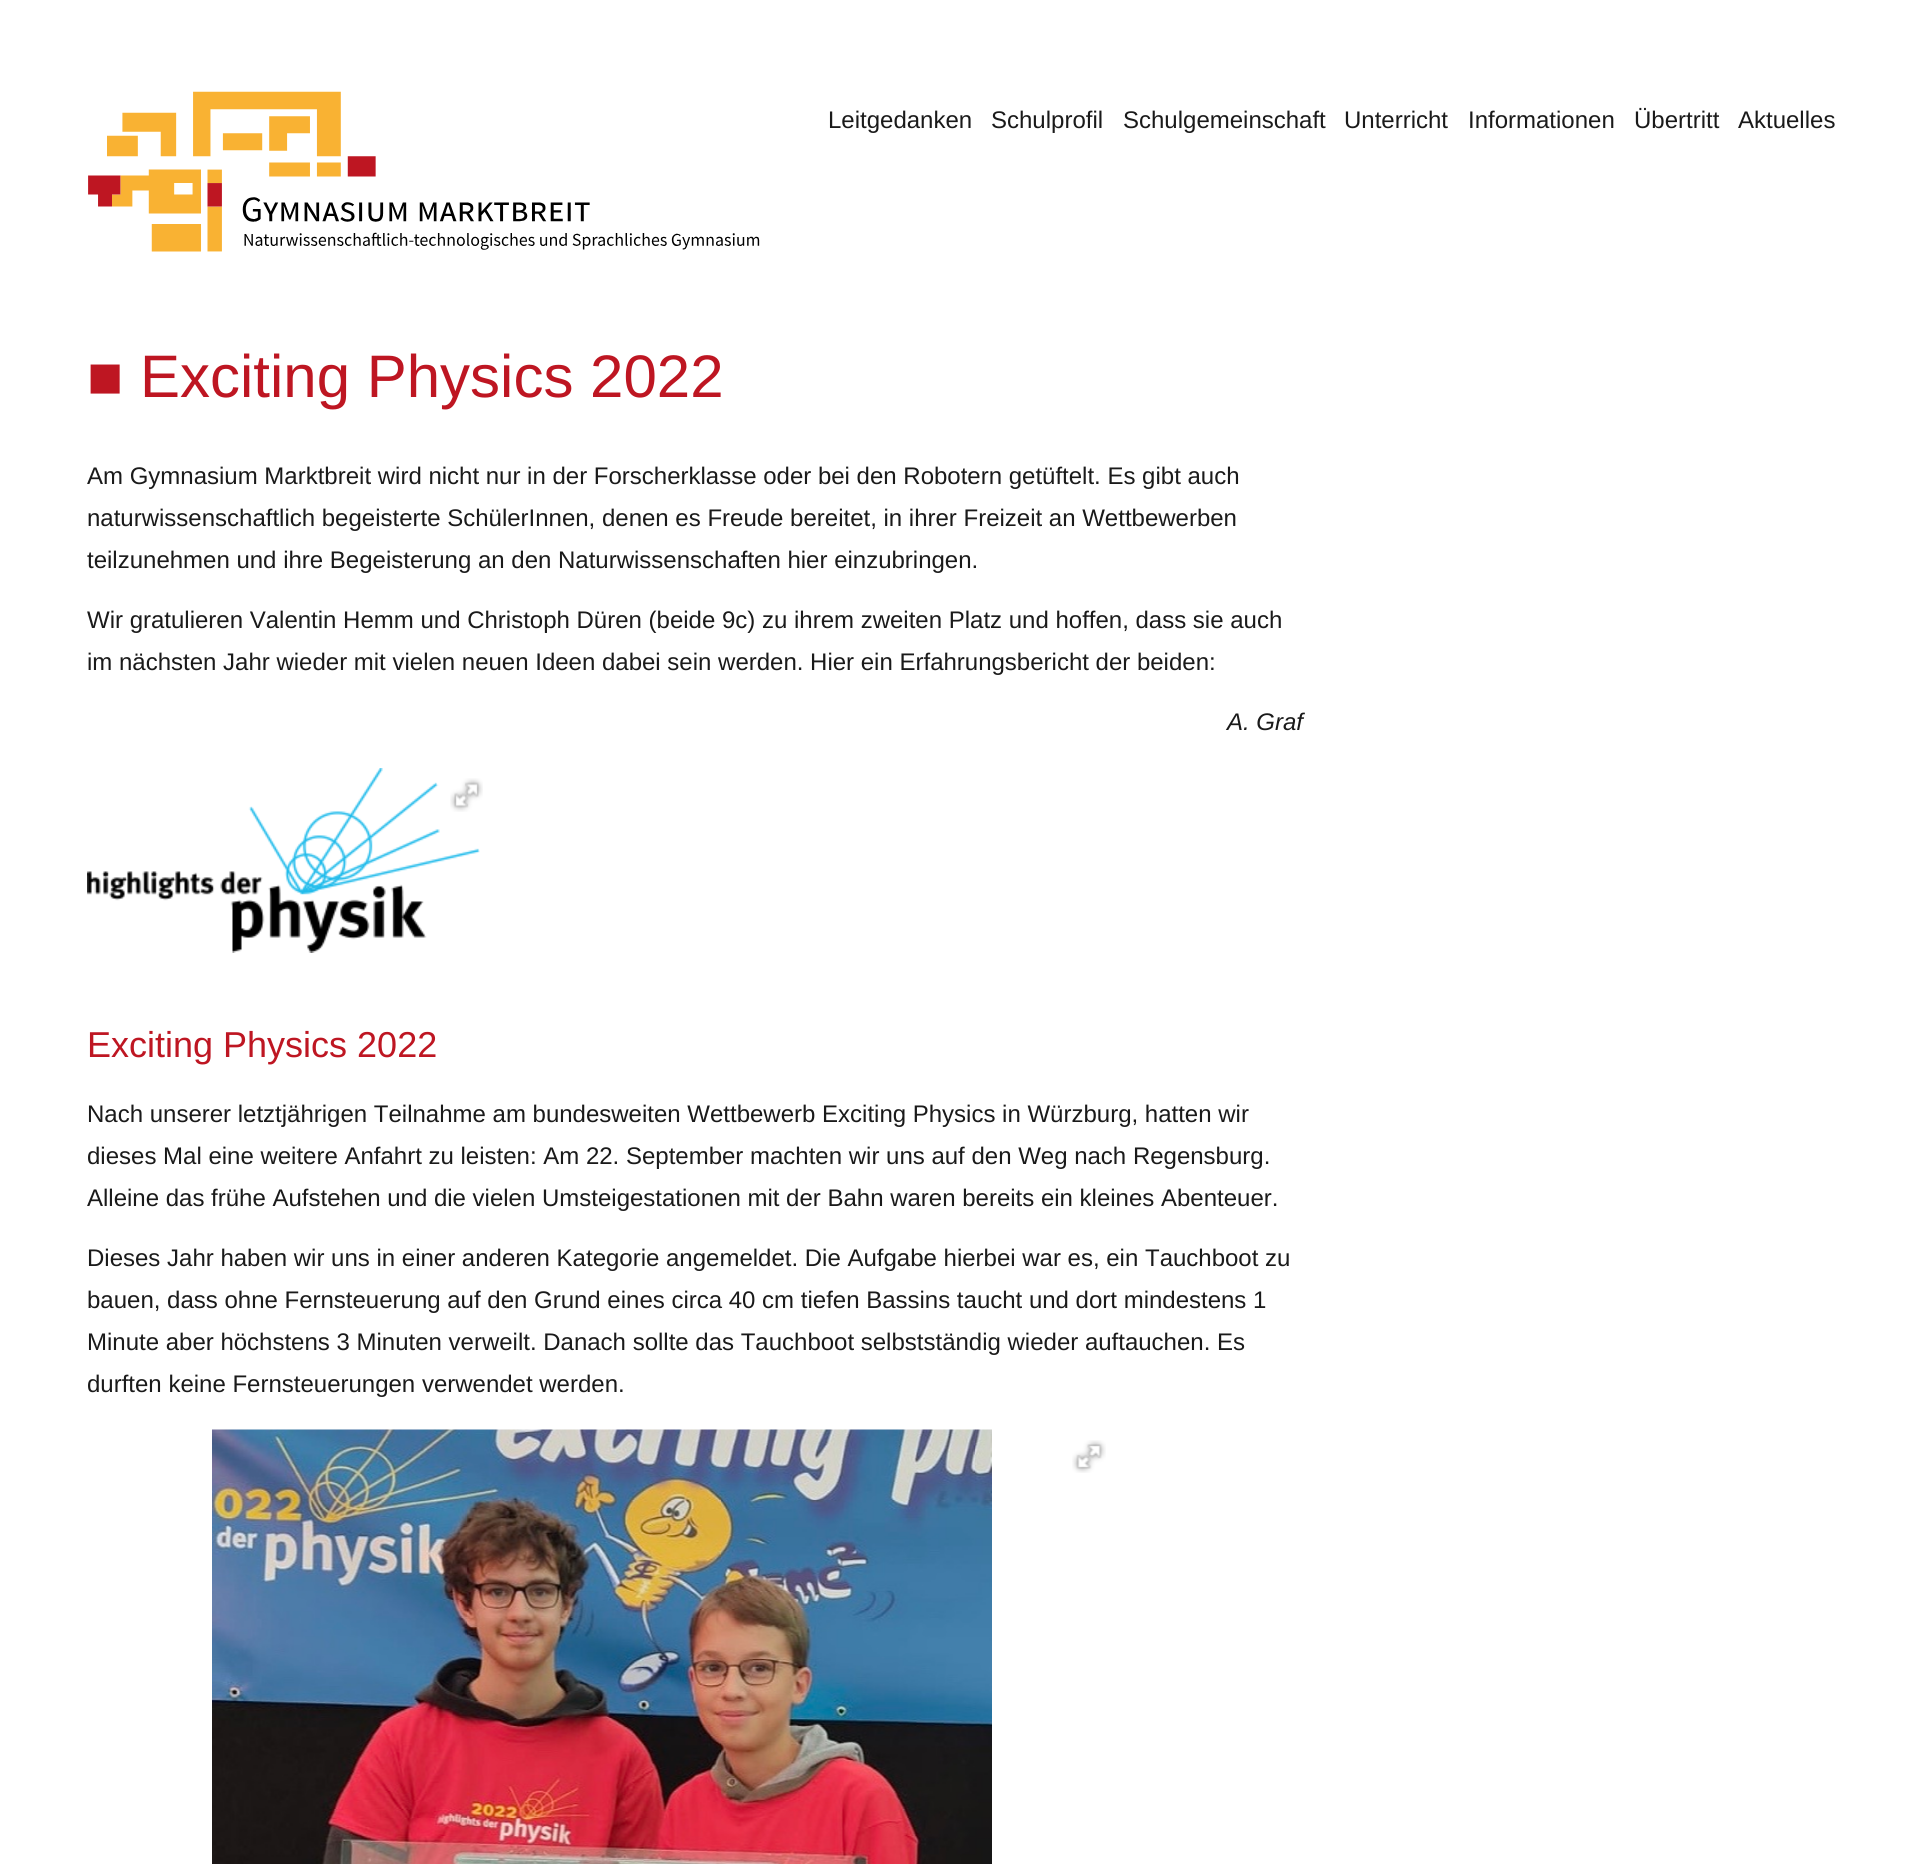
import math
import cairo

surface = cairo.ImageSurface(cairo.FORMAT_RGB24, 1910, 1864)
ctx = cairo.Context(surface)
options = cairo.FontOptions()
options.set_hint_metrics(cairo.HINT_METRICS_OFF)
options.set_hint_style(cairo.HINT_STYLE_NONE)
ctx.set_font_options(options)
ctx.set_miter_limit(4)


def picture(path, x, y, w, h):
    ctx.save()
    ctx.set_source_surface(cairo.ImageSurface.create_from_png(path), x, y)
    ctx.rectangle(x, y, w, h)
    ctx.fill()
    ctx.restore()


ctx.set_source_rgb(1, 1, 1)
ctx.paint()
picture("img1.png", 88, 91, 672, 161)
ctx.select_font_face("Liberation Sans")
ctx.set_font_size(24)
ctx.set_source_rgb(0.102, 0.102, 0.102)
ctx.move_to(828, 128)
ctx.show_text("Leitgedanken")
ctx.move_to(991, 128)
ctx.show_text("Schulprofil")
ctx.move_to(1123, 128)
ctx.show_text("Schulgemeinschaft")
ctx.move_to(1344, 128)
ctx.show_text("Unterricht")
ctx.move_to(1468, 128)
ctx.show_text("Informationen")
ctx.move_to(1634, 128)
ctx.show_text("Übertritt")
ctx.move_to(1738, 128)
ctx.show_text("Aktuelles")
ctx.set_font_size(60)
ctx.set_source_rgb(0.745, 0.086, 0.133)
ctx.move_to(87, 397)
ctx.show_text("■ Exciting Physics 2022")
ctx.set_font_size(24)
ctx.set_source_rgb(0.102, 0.102, 0.102)
ctx.move_to(87, 484)
ctx.show_text("Am Gymnasium Marktbreit wird nicht nur in der Forscherklasse oder bei den Robotern getüftelt. Es gibt auch")
ctx.move_to(87, 526)
ctx.show_text("naturwissenschaftlich begeisterte SchülerInnen, denen es Freude bereitet, in ihrer Freizeit an Wettbewerben")
ctx.move_to(87, 568)
ctx.show_text("teilzunehmen und ihre Begeisterung an den Naturwissenschaften hier einzubringen.")
ctx.move_to(87, 628)
ctx.show_text("Wir gratulieren Valentin Hemm und Christoph Düren (beide 9c) zu ihrem zweiten Platz und hoffen, dass sie auch")
ctx.move_to(87, 670)
ctx.show_text("im nächsten Jahr wieder mit vielen neuen Ideen dabei sein werden. Hier ein Erfahrungsbericht der beiden:")
ctx.select_font_face("Liberation Sans", cairo.FONT_SLANT_ITALIC)
ctx.move_to(1227, 730)
ctx.show_text("A. Graf")
picture("img2.png", 87, 768, 393, 185)
picture("img3.png", 450, 778, 33, 34)
ctx.select_font_face("Liberation Sans")
ctx.set_font_size(36)
ctx.set_source_rgb(0.745, 0.086, 0.133)
ctx.move_to(87, 1057)
ctx.show_text("Exciting Physics 2022")
ctx.set_font_size(24)
ctx.set_source_rgb(0.102, 0.102, 0.102)
ctx.move_to(87, 1122)
ctx.show_text("Nach unserer letztjährigen Teilnahme am bundesweiten Wettbewerb Exciting Physics in Würzburg, hatten wir")
ctx.move_to(87, 1164)
ctx.show_text("dieses Mal eine weitere Anfahrt zu leisten: Am 22. September machten wir uns auf den Weg nach Regensburg.")
ctx.move_to(87, 1206)
ctx.show_text("Alleine das frühe Aufstehen und die vielen Umsteigestationen mit der Bahn waren bereits ein kleines Abenteuer.")
ctx.move_to(87, 1266)
ctx.show_text("Dieses Jahr haben wir uns in einer anderen Kategorie angemeldet. Die Aufgabe hierbei war es, ein Tauchboot zu")
ctx.move_to(87, 1308)
ctx.show_text("bauen, dass ohne Fernsteuerung auf den Grund eines circa 40 cm tiefen Bassins taucht und dort mindestens 1")
ctx.move_to(87, 1350)
ctx.show_text("Minute aber höchstens 3 Minuten verweilt. Danach sollte das Tauchboot selbstständig wieder auftauchen. Es")
ctx.move_to(87, 1392)
ctx.show_text("durften keine Fernsteuerungen verwendet werden.")
picture("img4.png", 212, 1429, 780, 435)
picture("img5.png", 1072, 1440, 34, 33)
surface.write_to_png("page.png")
